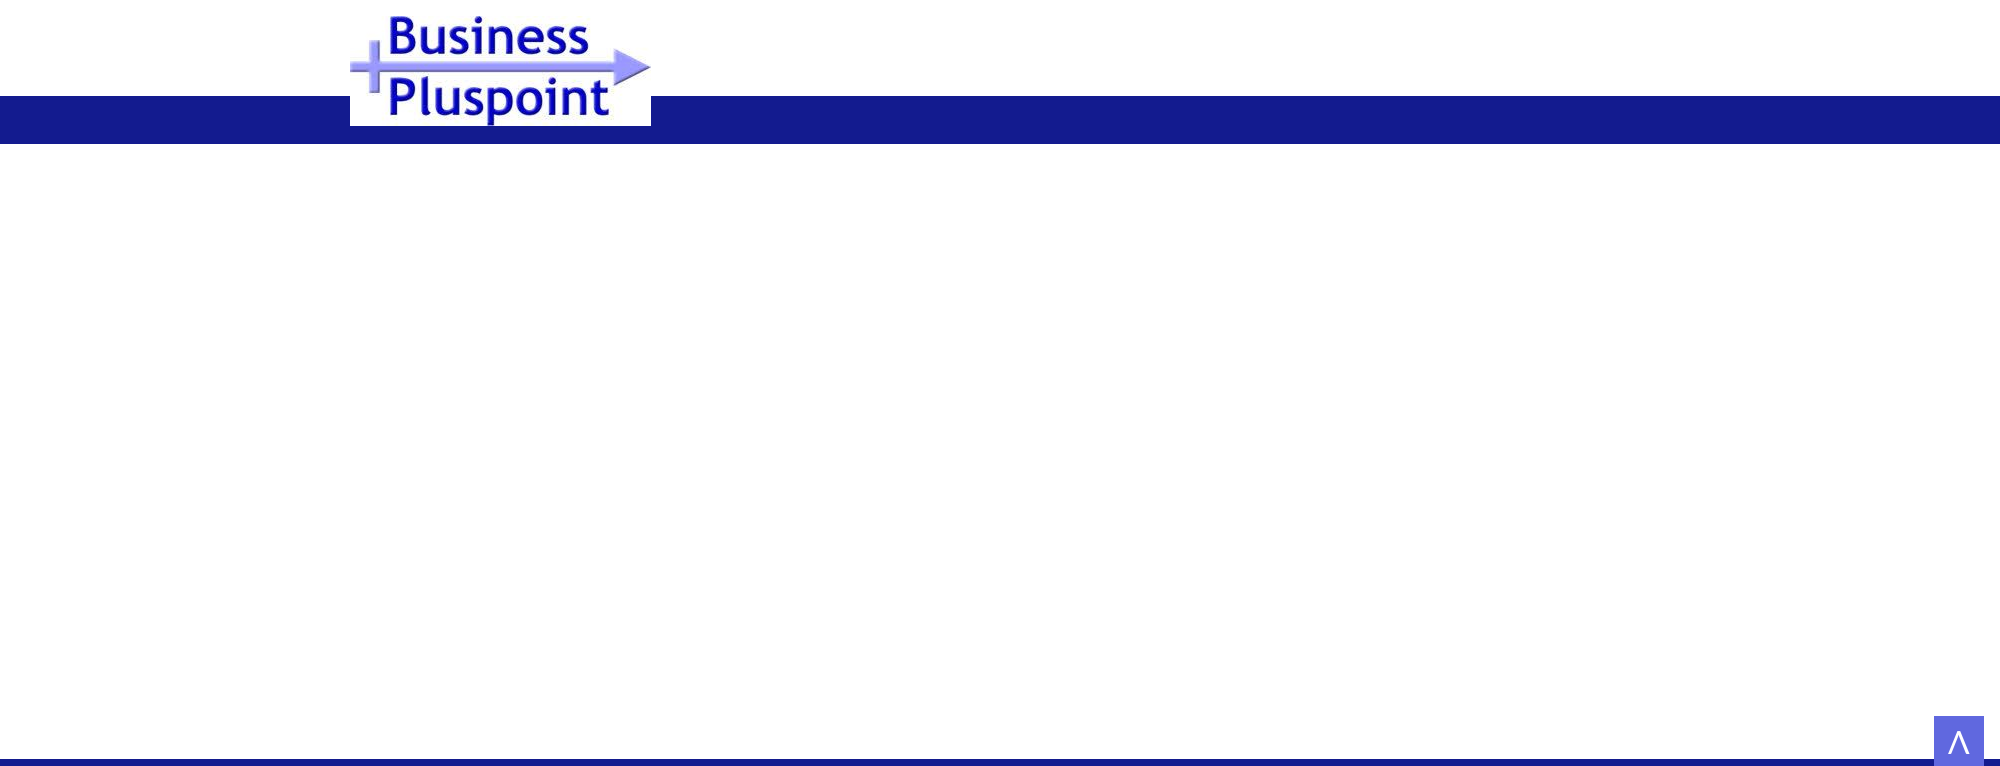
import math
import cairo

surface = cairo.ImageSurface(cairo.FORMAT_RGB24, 2000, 766)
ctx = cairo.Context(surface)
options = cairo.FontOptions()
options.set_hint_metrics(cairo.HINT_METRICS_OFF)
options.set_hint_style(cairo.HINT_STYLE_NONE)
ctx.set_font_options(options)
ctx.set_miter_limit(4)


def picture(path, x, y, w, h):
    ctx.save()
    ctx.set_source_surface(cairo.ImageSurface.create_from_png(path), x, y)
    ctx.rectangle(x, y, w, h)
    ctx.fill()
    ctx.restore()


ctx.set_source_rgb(1, 1, 1)
ctx.paint()
ctx.set_source_rgb(0.075, 0.106, 0.561)
ctx.rectangle(0, 96, 2000, 48)
ctx.fill()
picture("img1.png", 350, 16, 301, 110)
ctx.rectangle(0, 759, 2000, 7)
ctx.fill()
ctx.set_source_rgb(0.376, 0.408, 0.875)
ctx.rectangle(1934, 716, 50, 50)
ctx.fill()
ctx.select_font_face("Lato")
ctx.set_font_size(32)
ctx.set_source_rgb(1, 1, 1)
ctx.move_to(1948, 754)
ctx.show_text("Ʌ")
surface.write_to_png("page.png")
